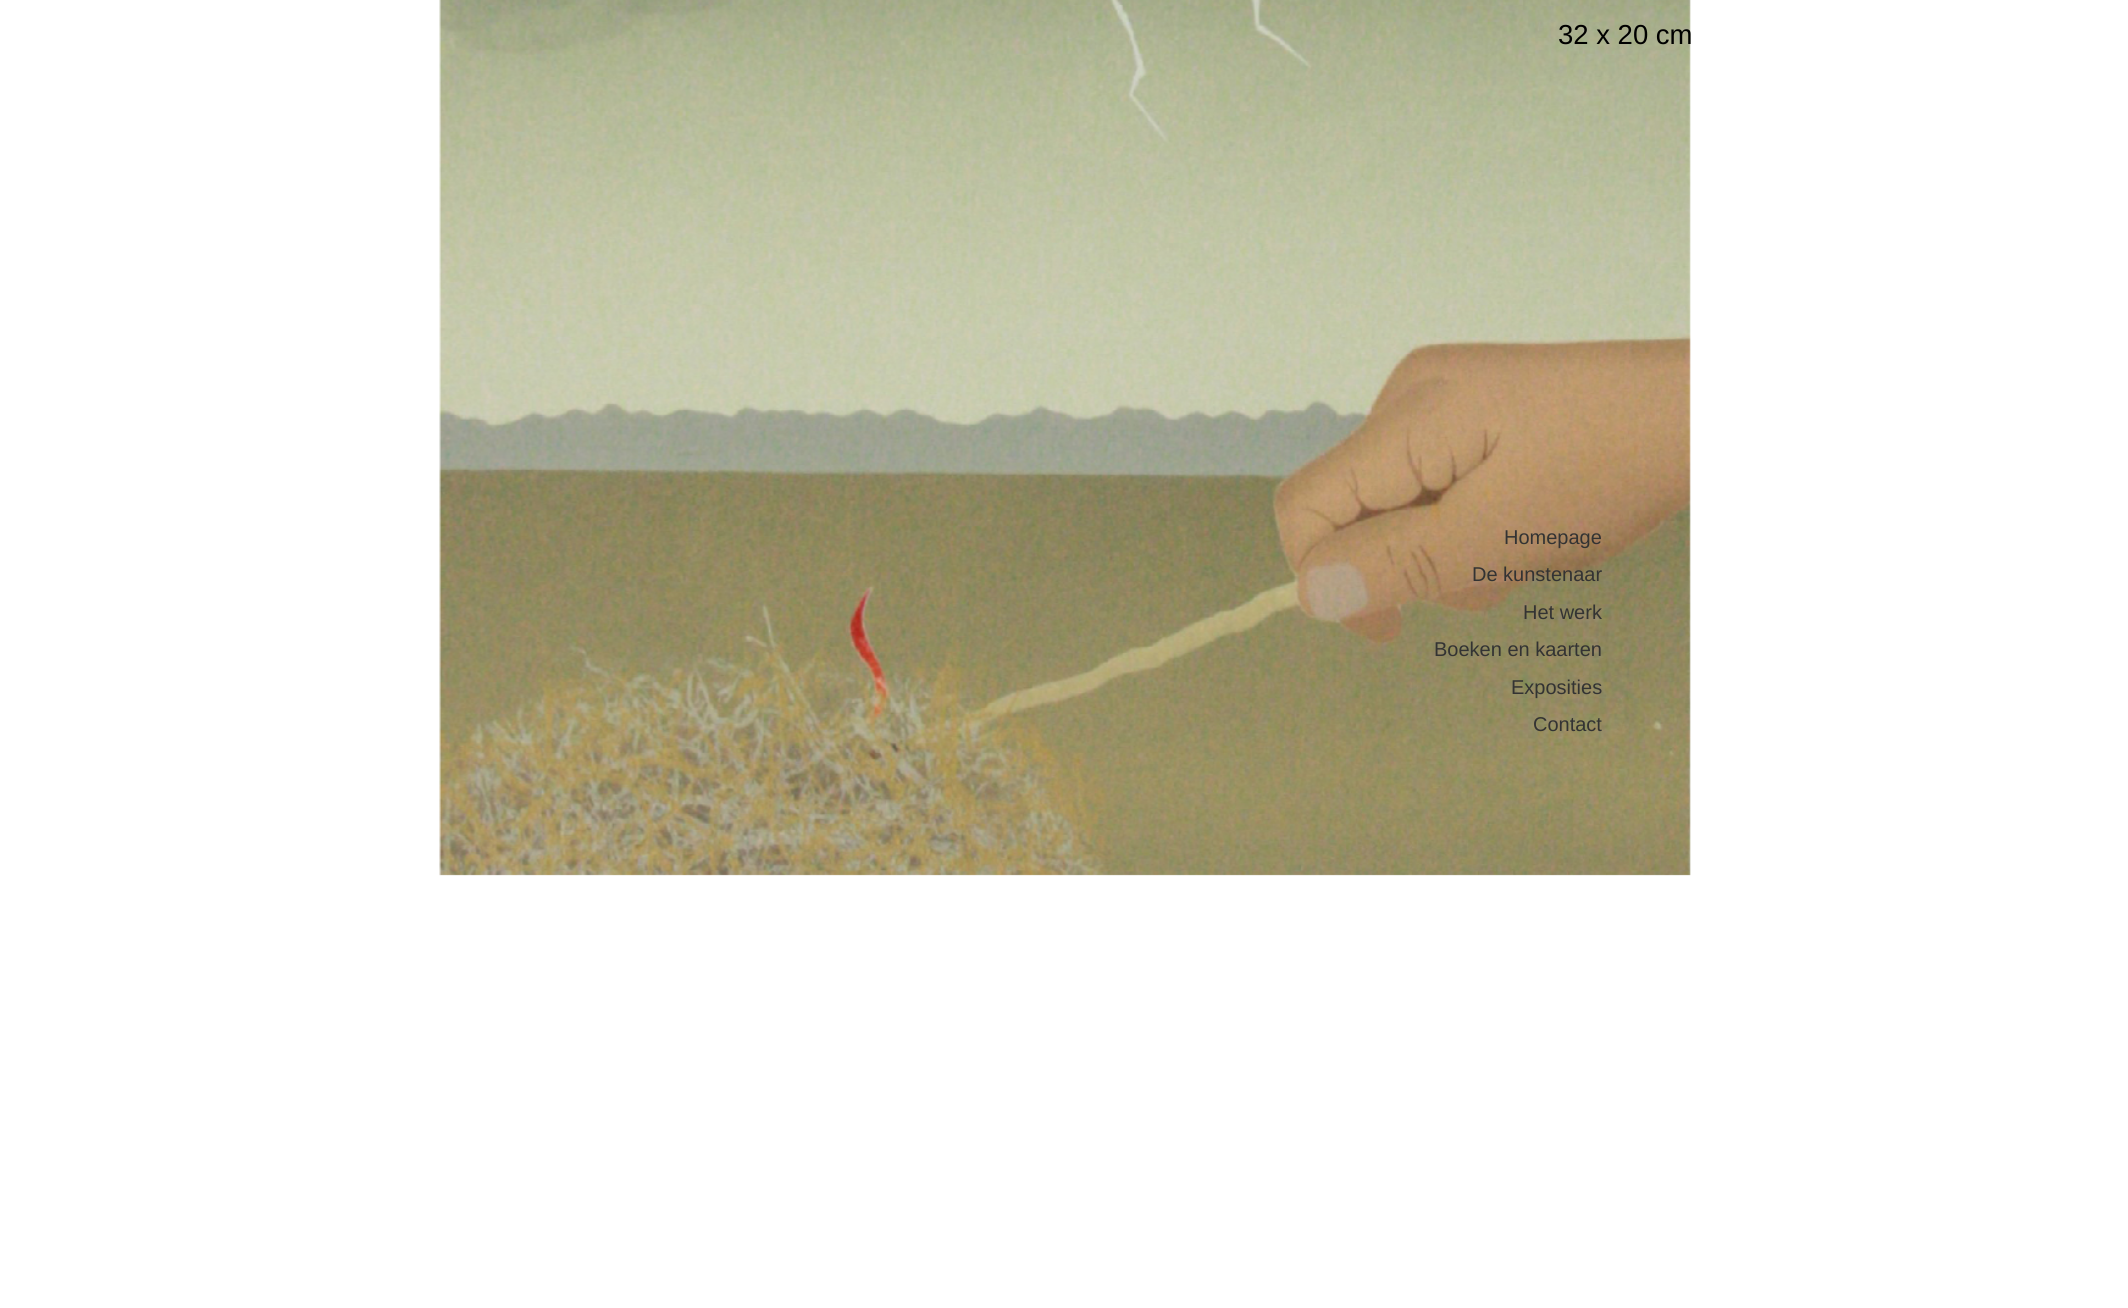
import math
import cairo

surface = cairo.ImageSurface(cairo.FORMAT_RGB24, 2128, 1308)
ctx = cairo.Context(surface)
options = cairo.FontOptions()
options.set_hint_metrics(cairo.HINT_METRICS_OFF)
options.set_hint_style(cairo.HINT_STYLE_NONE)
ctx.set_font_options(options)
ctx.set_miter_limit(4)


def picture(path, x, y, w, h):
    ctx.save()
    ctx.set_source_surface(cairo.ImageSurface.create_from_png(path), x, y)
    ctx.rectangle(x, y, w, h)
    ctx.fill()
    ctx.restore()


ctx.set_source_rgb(1, 1, 1)
ctx.paint()
picture("img1.png", 439, 0, 1252, 876)
ctx.select_font_face("Liberation Sans")
ctx.set_font_size(27.5)
ctx.set_source_rgb(0, 0, 0)
ctx.move_to(1558, 44)
ctx.show_text("32 x 20 cm")
ctx.set_font_size(20)
ctx.set_source_rgb(0.2, 0.2, 0.2)
ctx.move_to(1504, 544)
ctx.show_text("Homepage")
ctx.move_to(1472, 581)
ctx.show_text("De kunstenaar")
ctx.move_to(1523, 619)
ctx.show_text("Het werk")
ctx.move_to(1434, 656)
ctx.show_text("Boeken en kaarten")
ctx.move_to(1511, 694)
ctx.show_text("Exposities")
ctx.move_to(1533, 731)
ctx.show_text("Contact")
surface.write_to_png("page.png")
